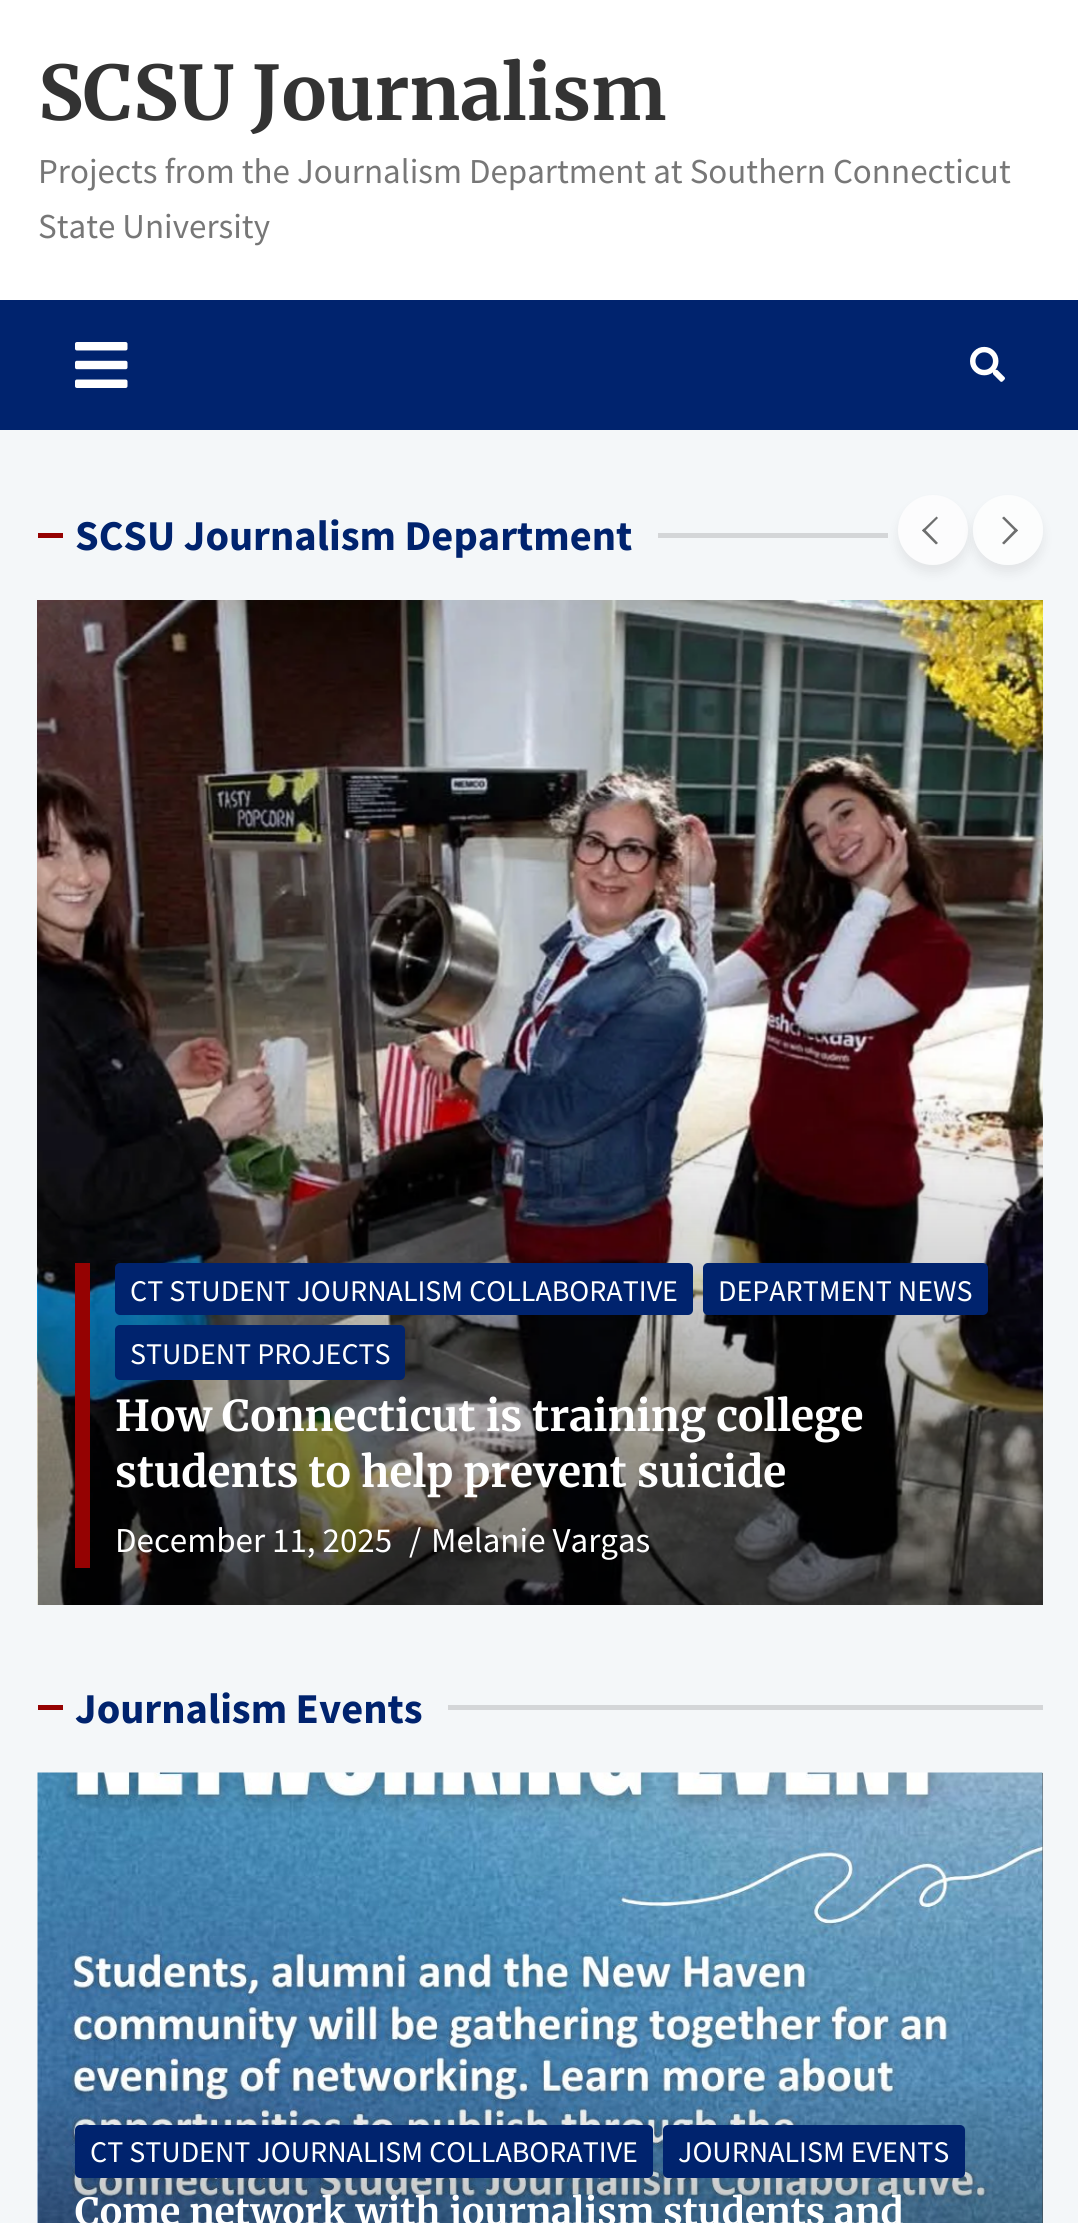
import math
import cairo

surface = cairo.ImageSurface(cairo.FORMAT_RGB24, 1078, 2223)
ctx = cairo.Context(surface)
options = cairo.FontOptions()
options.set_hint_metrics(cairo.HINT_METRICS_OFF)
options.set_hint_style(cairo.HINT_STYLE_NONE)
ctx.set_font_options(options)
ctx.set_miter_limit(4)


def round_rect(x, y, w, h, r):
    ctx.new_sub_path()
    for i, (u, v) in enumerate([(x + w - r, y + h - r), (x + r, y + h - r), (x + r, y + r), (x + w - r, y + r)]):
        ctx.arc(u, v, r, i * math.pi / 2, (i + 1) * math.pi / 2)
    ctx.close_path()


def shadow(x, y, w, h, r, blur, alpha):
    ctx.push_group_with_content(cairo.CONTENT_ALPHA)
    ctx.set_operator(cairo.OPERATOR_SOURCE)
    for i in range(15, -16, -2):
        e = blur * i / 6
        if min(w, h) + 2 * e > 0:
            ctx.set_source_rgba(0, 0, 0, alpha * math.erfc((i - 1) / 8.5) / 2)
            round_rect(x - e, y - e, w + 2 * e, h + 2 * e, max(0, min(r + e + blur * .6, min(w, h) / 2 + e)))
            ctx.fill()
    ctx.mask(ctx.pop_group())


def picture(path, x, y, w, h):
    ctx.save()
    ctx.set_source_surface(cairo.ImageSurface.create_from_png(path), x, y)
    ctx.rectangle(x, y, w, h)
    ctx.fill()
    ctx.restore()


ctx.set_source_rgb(0.957, 0.965, 0.976)
ctx.paint()
ctx.set_source_rgb(1, 1, 1)
ctx.rectangle(0, 0, 1078, 300)
ctx.fill()
ctx.select_font_face("Merriweather", cairo.FONT_SLANT_NORMAL, cairo.FONT_WEIGHT_BOLD)
ctx.set_font_size(75)
ctx.set_source_rgb(0.2, 0.2, 0.2)
ctx.move_to(38, 120)
ctx.show_text("SCSU Journalism")
ctx.select_font_face("Source Sans Pro")
ctx.set_font_size(35)
ctx.set_source_rgb(0.467, 0.467, 0.467)
ctx.move_to(38, 183)
ctx.show_text("Projects from the Journalism Department at Southern Connecticut")
ctx.move_to(38, 238)
ctx.show_text("State University")
ctx.set_source_rgb(0, 0.137, 0.431)
ctx.rectangle(0, 300, 1078, 130)
ctx.fill()
picture("img1.png", 75, 342, 53, 46)
picture("img2.png", 970, 346, 35, 36)
ctx.set_source_rgb(0.584, 0.008, 0.008)
ctx.rectangle(38, 533, 25, 5)
ctx.fill()
ctx.select_font_face("Source Sans Pro", cairo.FONT_SLANT_NORMAL, cairo.FONT_WEIGHT_BOLD)
ctx.set_font_size(42.5)
ctx.set_source_rgb(0, 0.137, 0.431)
ctx.move_to(75, 550)
ctx.show_text("SCSU Journalism Department")
ctx.set_source_rgb(0.831, 0.839, 0.847)
ctx.rectangle(658, 533, 230, 5)
ctx.fill()
ctx.set_source_rgb(0, 0, 0)
shadow(898, 503, 70, 70, 35, 6, 0.07)
ctx.set_source_rgb(0.988, 0.988, 0.992)
ctx.arc(933, 530, 35, 0, 2 * math.pi)
ctx.fill()
ctx.set_source_rgb(0.427, 0.431, 0.431)
ctx.new_path()
ctx.move_to(924, 528.5)
ctx.line_to(938, 543)
ctx.line_to(936, 544.5)
ctx.line_to(922, 530.5)
ctx.close_path()
ctx.fill()
ctx.new_path()
ctx.move_to(936.5, 516.5)
ctx.line_to(938, 518)
ctx.line_to(924, 532)
ctx.line_to(922, 530.5)
ctx.close_path()
ctx.fill()
ctx.save()
ctx.set_fill_rule(cairo.FILL_RULE_EVEN_ODD)
ctx.new_path()
ctx.move_to(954, 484)
ctx.line_to(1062, 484)
ctx.line_to(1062, 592)
ctx.line_to(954, 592)
ctx.close_path()
ctx.move_to(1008, 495)
ctx.curve_to(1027.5, 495, 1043, 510.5, 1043, 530)
ctx.curve_to(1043, 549.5, 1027.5, 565, 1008, 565)
ctx.curve_to(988.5, 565, 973, 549.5, 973, 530)
ctx.curve_to(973, 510.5, 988.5, 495, 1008, 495)
ctx.close_path()
ctx.clip()
ctx.set_source_rgb(0, 0, 0)
shadow(973, 503, 70, 70, 35, 6, 0.07)
ctx.restore()
ctx.set_source_rgba(1, 1, 1, 0.7)
ctx.arc(1008, 530, 35, 0, 2 * math.pi)
ctx.fill()
ctx.set_source_rgb(0.427, 0.431, 0.431)
ctx.new_path()
ctx.move_to(1004, 516.5)
ctx.line_to(1018, 530.5)
ctx.line_to(1016, 532)
ctx.line_to(1002, 518)
ctx.close_path()
ctx.fill()
ctx.new_path()
ctx.move_to(1016, 528.5)
ctx.line_to(1018, 530.5)
ctx.line_to(1004, 544.5)
ctx.line_to(1002, 543)
ctx.close_path()
ctx.fill()
picture("img3.png", 37, 600, 1006, 1005)
ctx.set_source_rgb(0.584, 0.008, 0.008)
ctx.rectangle(75, 1263, 15, 305)
ctx.fill()
ctx.set_source_rgb(0, 0.137, 0.431)
round_rect(115, 1263, 578, 52, 5)
ctx.fill()
ctx.select_font_face("Source Sans Pro")
ctx.set_font_size(30)
ctx.set_source_rgb(1, 1, 1)
ctx.move_to(130, 1301)
ctx.show_text("CT STUDENT JOURNALISM COLLABORATIVE")
ctx.set_source_rgb(0, 0.137, 0.431)
round_rect(703, 1263, 285, 52, 5)
ctx.fill()
ctx.set_source_rgb(1, 1, 1)
ctx.move_to(718, 1301)
ctx.show_text("DEPARTMENT NEWS")
ctx.set_source_rgb(0, 0.137, 0.431)
round_rect(115, 1325, 290, 55, 5)
ctx.fill()
ctx.set_source_rgb(1, 1, 1)
ctx.move_to(130, 1364)
ctx.show_text("STUDENT PROJECTS")
ctx.select_font_face("Merriweather", cairo.FONT_SLANT_NORMAL, cairo.FONT_WEIGHT_BOLD)
ctx.set_font_size(42.5)
ctx.move_to(115, 1431)
ctx.show_text("How Connecticut is training college")
ctx.move_to(115, 1487)
ctx.show_text("students to help prevent suicide")
ctx.select_font_face("Source Sans Pro")
ctx.set_font_size(35)
ctx.move_to(115, 1552)
ctx.show_text("December 11, 2025")
ctx.move_to(409, 1552)
ctx.show_text("/")
ctx.move_to(431, 1552)
ctx.show_text("Melanie Vargas")
ctx.set_source_rgb(0.584, 0.008, 0.008)
ctx.rectangle(38, 1705, 25, 5)
ctx.fill()
ctx.select_font_face("Source Sans Pro", cairo.FONT_SLANT_NORMAL, cairo.FONT_WEIGHT_BOLD)
ctx.set_font_size(42.5)
ctx.set_source_rgb(0, 0.137, 0.431)
ctx.move_to(75, 1723)
ctx.show_text("Journalism Events")
ctx.set_source_rgb(0.831, 0.839, 0.847)
ctx.rectangle(448, 1705, 595, 5)
ctx.fill()
ctx.set_source_rgb(0.333, 0.333, 0.333)
ctx.rectangle(1042, 1773, 1, 450)
ctx.fill()
picture("img4.png", 37, 1772, 1006, 451)
gradient = cairo.LinearGradient(540, 1773, 540, 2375)
gradient.add_color_stop_rgba(0.5, 0, 0, 0, 0)
gradient.add_color_stop_rgba(1, 0, 0, 0, 0.5)
ctx.set_source(gradient)
ctx.rectangle(38, 2087, 1005, 136)
ctx.fill()
ctx.set_source_rgb(0, 0.137, 0.431)
round_rect(75, 2125, 578, 53, 5)
ctx.fill()
ctx.select_font_face("Source Sans Pro")
ctx.set_font_size(30)
ctx.set_source_rgb(1, 1, 1)
ctx.move_to(90, 2162)
ctx.show_text("CT STUDENT JOURNALISM COLLABORATIVE")
ctx.set_source_rgb(0, 0.137, 0.431)
round_rect(663, 2125, 302, 53, 5)
ctx.fill()
ctx.set_source_rgb(1, 1, 1)
ctx.move_to(678, 2162)
ctx.show_text("JOURNALISM EVENTS")
ctx.select_font_face("Merriweather", cairo.FONT_SLANT_NORMAL, cairo.FONT_WEIGHT_BOLD)
ctx.set_font_size(37.5)
ctx.move_to(75, 2225)
ctx.show_text("Come network with journalism students and")
surface.write_to_png("page.png")
